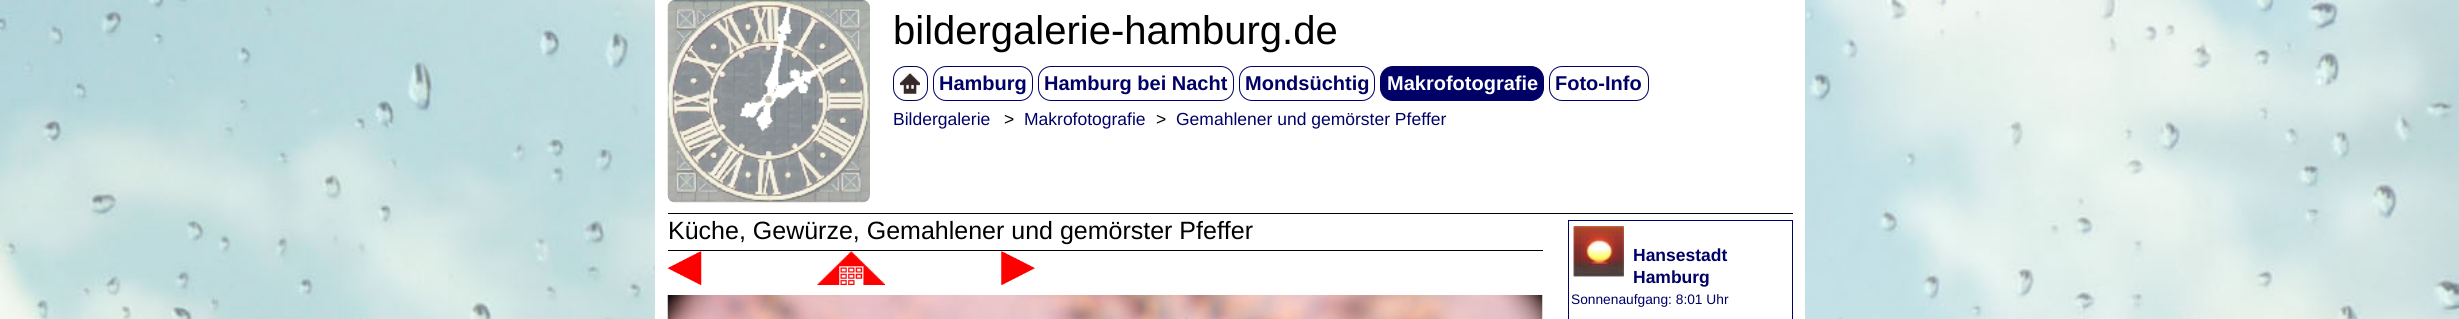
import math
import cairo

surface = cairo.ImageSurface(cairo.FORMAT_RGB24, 2459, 319)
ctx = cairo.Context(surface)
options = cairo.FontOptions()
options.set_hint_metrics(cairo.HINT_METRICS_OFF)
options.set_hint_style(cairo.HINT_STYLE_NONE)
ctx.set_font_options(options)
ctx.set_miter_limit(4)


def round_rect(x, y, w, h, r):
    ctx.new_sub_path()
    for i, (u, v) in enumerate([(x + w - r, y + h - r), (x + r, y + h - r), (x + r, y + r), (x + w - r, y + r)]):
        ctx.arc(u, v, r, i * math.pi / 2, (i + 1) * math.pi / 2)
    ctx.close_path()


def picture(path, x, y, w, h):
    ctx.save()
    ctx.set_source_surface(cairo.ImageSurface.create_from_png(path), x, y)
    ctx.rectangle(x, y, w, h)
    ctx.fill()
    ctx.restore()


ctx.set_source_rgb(1, 1, 1)
ctx.paint()
picture("img1.png", 0, 0, 2459, 319)
ctx.set_source_rgb(1, 1, 1)
ctx.rectangle(655, 0, 1150, 319)
ctx.fill()
picture("img2.png", 667, 0, 203, 203)
ctx.select_font_face("Liberation Sans")
ctx.set_font_size(40)
ctx.set_source_rgb(0, 0, 0)
ctx.move_to(893, 44)
ctx.show_text("bildergalerie-hamburg.de")
round_rect(893.5, 66.5, 34, 34, 12.5)
ctx.set_source_rgb(0, 0, 0.4)
ctx.set_line_width(1)
ctx.stroke()
picture("img3.png", 900, 73, 20, 21)
round_rect(933.5, 66.5, 99, 34, 12.5)
ctx.stroke()
ctx.select_font_face("Liberation Sans", cairo.FONT_SLANT_NORMAL, cairo.FONT_WEIGHT_BOLD)
ctx.set_font_size(20)
ctx.move_to(939, 90)
ctx.show_text("Hamburg")
round_rect(1038.5, 66.5, 195, 34, 12.5)
ctx.stroke()
ctx.move_to(1044, 90)
ctx.show_text("Hamburg bei Nacht")
round_rect(1239.5, 66.5, 135, 34, 12.5)
ctx.stroke()
ctx.move_to(1245, 90)
ctx.show_text("Mondsüchtig")
round_rect(1380.5, 66.5, 163, 34, 12.5)
ctx.fill_preserve()
ctx.stroke()
ctx.set_source_rgb(1, 1, 1)
ctx.move_to(1387, 90)
ctx.show_text("Makrofotografie")
round_rect(1549.5, 66.5, 99, 34, 12.5)
ctx.set_source_rgb(0, 0, 0.4)
ctx.stroke()
ctx.move_to(1555, 90)
ctx.show_text("Foto-Info")
ctx.select_font_face("Liberation Sans")
ctx.set_font_size(17.5)
ctx.move_to(893, 125)
ctx.show_text("Bildergalerie")
ctx.set_source_rgb(0, 0, 0)
ctx.move_to(1004, 125)
ctx.show_text(">")
ctx.set_source_rgb(0, 0, 0.4)
ctx.move_to(1024, 125)
ctx.show_text("Makrofotografie")
ctx.set_source_rgb(0, 0, 0)
ctx.move_to(1156, 125)
ctx.show_text(">")
ctx.set_source_rgb(0, 0, 0.4)
ctx.move_to(1176, 125)
ctx.show_text("Gemahlener und gemörster Pfeffer")
ctx.set_source_rgb(0, 0, 0)
ctx.rectangle(668, 213, 1125, 1)
ctx.fill()
ctx.set_font_size(25)
ctx.move_to(668, 239)
ctx.show_text("Küche, Gewürze, Gemahlener und gemörster Pfeffer")
ctx.rectangle(668, 250, 875, 1)
ctx.fill()
picture("img4.png", 667, 251, 35, 34)
picture("img5.png", 817, 251, 68, 34)
picture("img6.png", 1001, 251, 34, 34)
picture("img7.png", 667, 295, 876, 24)
ctx.rectangle(1568.5, 220.5, 224, 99)
ctx.set_source_rgb(0, 0, 0.4)
ctx.stroke()
picture("img8.png", 1573, 226, 51, 51)
picture("img9.png", 1573, 226, 51, 51)
ctx.select_font_face("Liberation Sans", cairo.FONT_SLANT_NORMAL, cairo.FONT_WEIGHT_BOLD)
ctx.set_font_size(17.5)
ctx.move_to(1633, 261)
ctx.show_text("Hansestadt")
ctx.move_to(1633, 283)
ctx.show_text("Hamburg")
ctx.select_font_face("Liberation Sans")
ctx.set_font_size(13.75)
ctx.move_to(1571, 304)
ctx.show_text("Sonnenaufgang: 8:01 Uhr")
surface.write_to_png("page.png")
